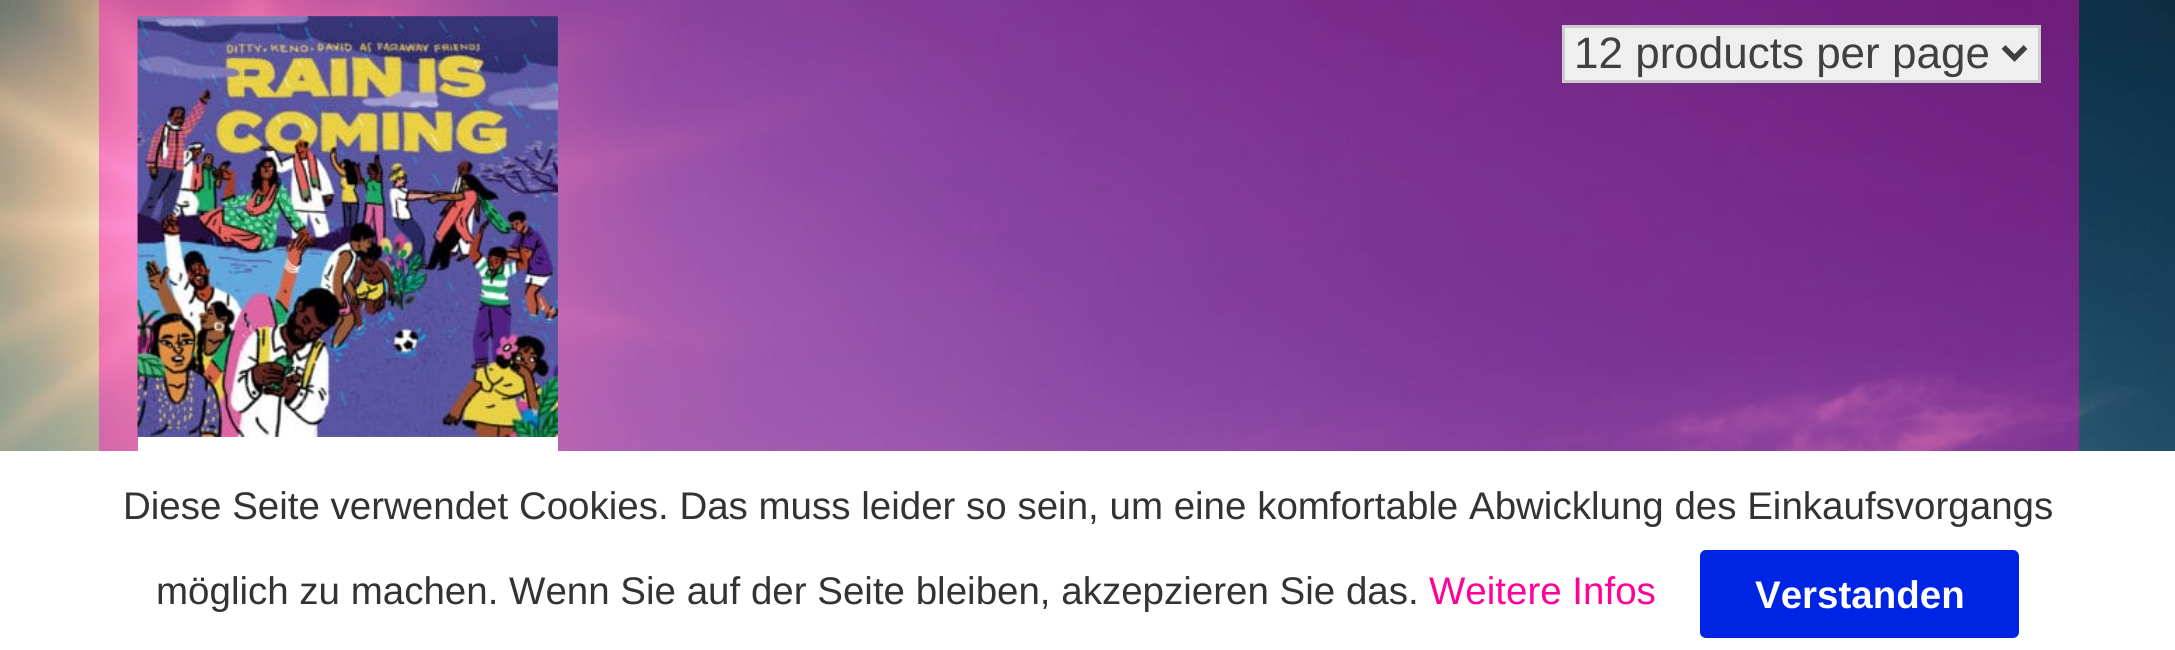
import math
import cairo

surface = cairo.ImageSurface(cairo.FORMAT_RGB24, 2175, 650)
ctx = cairo.Context(surface)
options = cairo.FontOptions()
options.set_hint_metrics(cairo.HINT_METRICS_OFF)
options.set_hint_style(cairo.HINT_STYLE_NONE)
ctx.set_font_options(options)
ctx.set_miter_limit(4)


def round_rect(x, y, w, h, r):
    ctx.new_sub_path()
    for i, (u, v) in enumerate([(x + w - r, y + h - r), (x + r, y + h - r), (x + r, y + r), (x + w - r, y + r)]):
        ctx.arc(u, v, r, i * math.pi / 2, (i + 1) * math.pi / 2)
    ctx.close_path()


def picture(path, x, y, w, h):
    ctx.save()
    ctx.set_source_surface(cairo.ImageSurface.create_from_png(path), x, y)
    ctx.rectangle(x, y, w, h)
    ctx.fill()
    ctx.restore()


ctx.set_source_rgb(1, 1, 1)
ctx.paint()
picture("img1.png", 0, 0, 2175, 451)
ctx.set_source_rgb(1, 1, 1)
ctx.rectangle(138, 17, 420, 434)
ctx.fill()
picture("img2.png", 137, 16, 421, 421)
ctx.set_source_rgb(0.937, 0.937, 0.937)
ctx.rectangle(1563.5, 26.5, 476, 55)
ctx.fill_preserve()
ctx.set_source_rgb(0.8, 0.8, 0.8)
ctx.set_line_width(3)
ctx.stroke()
ctx.new_path()
ctx.move_to(2003.5, 47)
ctx.line_to(2014.5, 58)
ctx.line_to(2025.5, 47)
ctx.set_source_rgb(0.251, 0.251, 0.251)
ctx.set_line_width(5.5)
ctx.stroke()
ctx.select_font_face("Liberation Sans")
ctx.set_font_size(44)
ctx.move_to(1574, 68)
ctx.show_text("12 products per page")
ctx.set_font_size(38.5)
ctx.set_source_rgb(0.2, 0.2, 0.2)
ctx.move_to(123, 519)
ctx.show_text("Diese Seite verwendet Cookies. Das muss leider so sein, um eine komfortable Abwicklung des Einkaufsvorgangs")
ctx.move_to(156, 604)
ctx.show_text("möglich zu machen. Wenn Sie auf der Seite bleiben, akzepzieren Sie das.")
ctx.set_source_rgb(1, 0, 0.6)
ctx.move_to(1429, 604)
ctx.show_text("Weitere Infos")
ctx.set_source_rgb(0, 0.141, 0.89)
round_rect(1700, 550, 319, 88, 6)
ctx.fill()
ctx.select_font_face("Liberation Sans", cairo.FONT_SLANT_NORMAL, cairo.FONT_WEIGHT_BOLD)
ctx.set_source_rgb(1, 1, 1)
ctx.move_to(1755, 608)
ctx.show_text("Verstanden")
surface.write_to_png("page.png")
